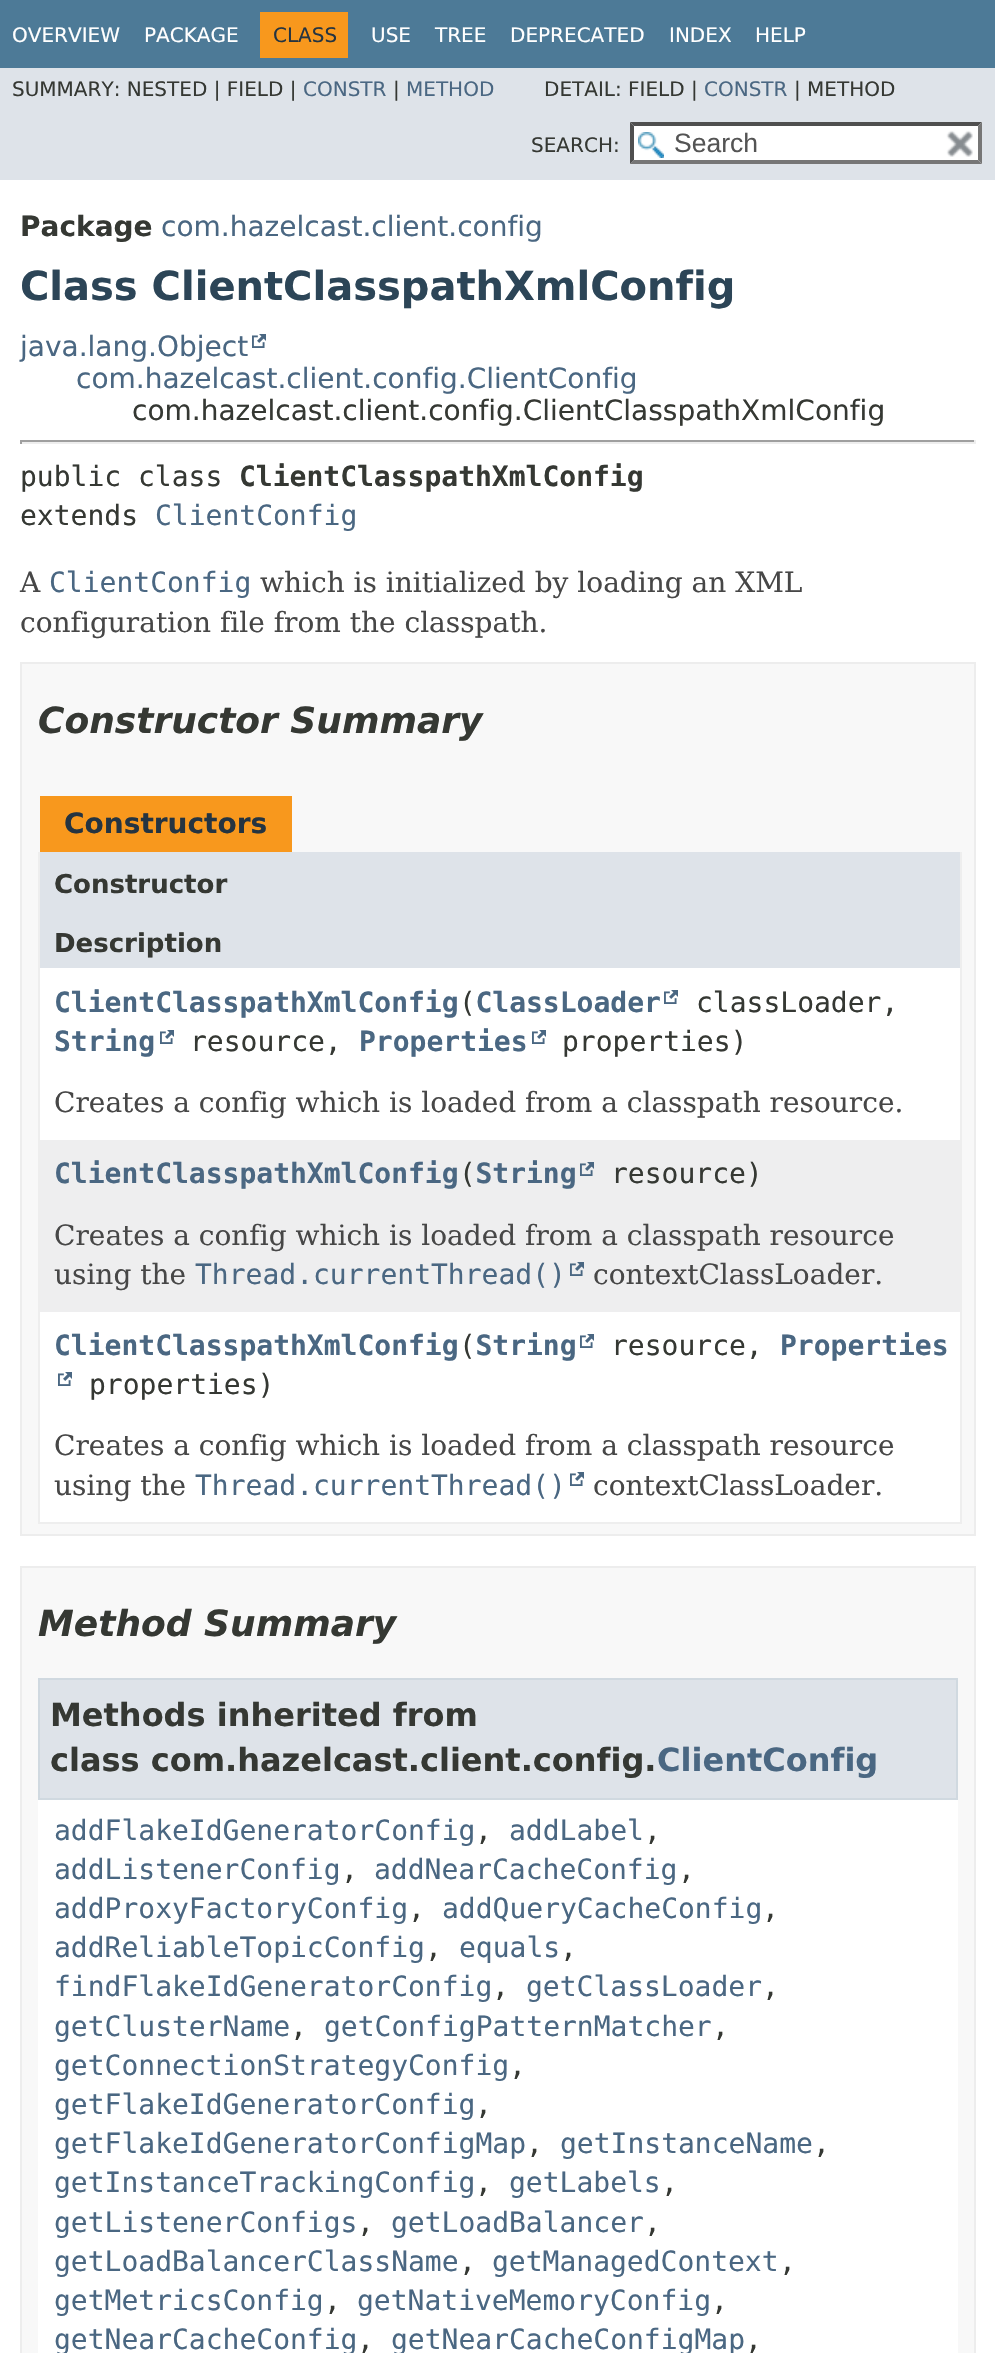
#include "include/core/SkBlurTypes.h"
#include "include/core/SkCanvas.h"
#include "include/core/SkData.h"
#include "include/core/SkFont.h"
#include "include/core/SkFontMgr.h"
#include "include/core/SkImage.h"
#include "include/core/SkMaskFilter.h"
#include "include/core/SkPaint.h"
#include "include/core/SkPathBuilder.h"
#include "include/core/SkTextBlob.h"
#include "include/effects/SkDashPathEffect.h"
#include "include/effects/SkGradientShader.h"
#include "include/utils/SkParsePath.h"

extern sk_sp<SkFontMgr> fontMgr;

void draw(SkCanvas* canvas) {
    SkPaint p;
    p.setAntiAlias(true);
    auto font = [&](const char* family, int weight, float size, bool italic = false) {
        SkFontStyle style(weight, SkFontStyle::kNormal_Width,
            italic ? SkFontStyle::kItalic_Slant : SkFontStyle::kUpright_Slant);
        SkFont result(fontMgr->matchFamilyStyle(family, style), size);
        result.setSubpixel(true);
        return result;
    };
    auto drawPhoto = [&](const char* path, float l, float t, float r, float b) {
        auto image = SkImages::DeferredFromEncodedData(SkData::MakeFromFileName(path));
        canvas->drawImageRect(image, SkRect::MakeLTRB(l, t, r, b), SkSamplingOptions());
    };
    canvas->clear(0xFFFFFFFF);
    p.setColor(0xFF4D7A97);
    canvas->drawRect(SkRect::MakeLTRB(0, 0, 995, 68), p);
    auto font1 = font("DejaVu Sans", 400, 20);
    p.setColor(0xFFFFFFFF);
    canvas->drawString("OVERVIEW", 12, 42, font1, p);
    canvas->drawString("PACKAGE", 144, 42, font1, p);
    p.setColor(0xFFF8981D);
    canvas->drawRect(SkRect::MakeLTRB(260, 12, 348, 58), p);
    p.setColor(0xFF253441);
    canvas->drawString("CLASS", 273, 42, font1, p);
    p.setColor(0xFFFFFFFF);
    {
        const struct { const char* s; float x, y; } items[] = {
            {"USE", 371, 42},
            {"TREE", 435, 42},
            {"DEPRECATED", 510, 42},
            {"INDEX", 669, 42},
            {"HELP", 755, 42},
        };
        for (auto [s, x, y] : items) {
            canvas->drawString(s, x, y, font1, p);
        }
    }
    p.setColor(0xFFDEE3E9);
    canvas->drawRect(SkRect::MakeLTRB(0, 68, 995, 180), p);
    p.setColor(0xFF353833);
    canvas->drawString("SUMMARY: NESTED | FIELD |", 12, 96, font1, p);
    p.setColor(0xFF4A6782);
    canvas->drawString("CONSTR", 303, 96, font1, p);
    p.setColor(0xFF353833);
    canvas->drawString("|", 393, 96, font1, p);
    p.setColor(0xFF4A6782);
    canvas->drawString("METHOD", 406, 96, font1, p);
    p.setColor(0xFF353833);
    canvas->drawString("DETAIL: FIELD |", 544, 96, font1, p);
    p.setColor(0xFF4A6782);
    canvas->drawString("CONSTR", 704, 96, font1, p);
    p.setColor(0xFF353833);
    canvas->drawString("| METHOD", 794, 96, font1, p);
    canvas->drawString("SEARCH:", 531, 152, font1, p);
    p.setColor(0xFFFFFFFF);
    canvas->drawRect(SkRect::MakeLTRB(630, 122, 982, 164), p);
    drawPhoto("media/1.png", 638, 132, 664, 158);
    p.setColor(0xFF4F4F4F);
    canvas->drawPath(SkPathBuilder().moveTo(630, 122).lineTo(982, 122).lineTo(978, 126).lineTo(634, 126).close().detach(), p);
    p.setColor(0xFF767676);
    canvas->drawPath(SkPathBuilder().moveTo(982, 122).lineTo(982, 164).lineTo(978, 160).lineTo(978, 126).close().detach(), p);
    canvas->drawPath(SkPathBuilder().moveTo(982, 164).lineTo(630, 164).lineTo(634, 160).lineTo(978, 160).close().detach(), p);
    p.setColor(0xFF4F4F4F);
    canvas->drawPath(SkPathBuilder().moveTo(630, 164).lineTo(630, 122).lineTo(634, 126).lineTo(634, 160).close().detach(), p);
    auto font2 = font("Liberation Sans", 400, 26.5f);
    p.setColor(0xFF545454);
    canvas->drawString("Search", 674, 152, font2, p);
    drawPhoto("media/2.png", 946, 130, 973, 157);
    auto font3 = font("DejaVu Sans", 700, 28);
    p.setColor(0xFF353833);
    canvas->drawString("Package", 20, 236, font3, p);
    auto font4 = font("DejaVu Sans", 400, 28);
    p.setColor(0xFF4A6782);
    canvas->drawString("com.hazelcast.client.config", 161, 236, font4, p);
    auto font5 = font("DejaVu Sans", 700, 40);
    p.setColor(0xFF2C4557);
    canvas->drawString("Class ClientClasspathXmlConfig", 20, 300, font5, p);
    p.setColor(0xFF4A6782);
    canvas->drawString("java.lang.Object", 20, 356, font4, p);
    drawPhoto("media/3.png", 252, 334, 266, 348);
    canvas->drawString("com.hazelcast.client.config.ClientConfig", 76, 388, font4, p);
    p.setColor(0xFF353833);
    canvas->drawString("com.hazelcast.client.config.ClientClasspathXmlConfig", 132, 420, font4, p);
    {
        const struct { float l, t, r, b; SkColor color; } items[] = {
            {20, 440, 976, 442, 0xFF9F9F9F},
            {974, 440, 976, 444, 0xFFEEEEEE},
            {20, 442, 976, 444, 0xFFEEEEEE},
            {20, 440, 22, 444, 0xFF9F9F9F},
        };
        for (auto [l, t, r, b, color] : items) {
            p.setColor(color);
            canvas->drawRect(SkRect::MakeLTRB(l, t, r, b), p);
        }
    }
    auto font6 = font("DejaVu Sans Mono", 400, 28);
    p.setColor(0xFF353833);
    canvas->drawString("public class", 20, 486, font6, p);
    auto font7 = font("DejaVu Sans Mono", 700, 28);
    canvas->drawString("ClientClasspathXmlConfig", 239, 486, font7, p);
    canvas->drawString("extends", 20, 525, font6, p);
    p.setColor(0xFF4A6782);
    canvas->drawString("ClientConfig", 155, 525, font6, p);
    auto font8 = font("DejaVu Serif", 400, 28);
    p.setColor(0xFF474747);
    canvas->drawString("A", 20, 592, font8, p);
    p.setColor(0xFF4A6782);
    canvas->drawString("ClientConfig", 49, 592, font6, p);
    p.setColor(0xFF474747);
    canvas->drawString("which is initialized by loading an XML", 260, 592, font8, p);
    canvas->drawString("configuration file from the classpath.", 20, 632, font8, p);
    p.setColor(0xFFF8F8F8);
    canvas->drawRect(SkRect::MakeLTRB(21, 663, 975, 1535), p);
    p.setStyle(SkPaint::kStroke_Style);
    p.setStrokeWidth(2);
    p.setColor(0xFFEDEDED);
    canvas->drawRect(SkRect::MakeLTRB(21, 663, 975, 1535), p);
    auto font9 = font("DejaVu Sans", 700, 36, true);
    p.setStyle(SkPaint::kFill_Style);
    p.setColor(0xFF353833);
    canvas->drawString("Constructor Summary", 38, 733, font9, p);
    p.setColor(0xFFF8981D);
    canvas->drawRect(SkRect::MakeLTRB(40, 796, 292, 852), p);
    p.setColor(0xFF253441);
    canvas->drawString("Constructors", 64, 833, font3, p);
    {
        const struct { float l, t, r, b; SkColor color; } items[] = {
            {960, 852, 962, 1524, 0xFFEEEEEE},
            {38, 1522, 962, 1524, 0xFFEEEEEE},
            {38, 852, 40, 1524, 0xFFEEEEEE},
            {40, 852, 960, 968, 0xFFDEE3E9},
        };
        for (auto [l, t, r, b, color] : items) {
            p.setColor(color);
            canvas->drawRect(SkRect::MakeLTRB(l, t, r, b), p);
        }
    }
    auto font10 = font("DejaVu Sans", 700, 26);
    p.setColor(0xFF353833);
    canvas->drawString("Constructor", 54, 893, font10, p);
    canvas->drawString("Description", 54, 952, font10, p);
    p.setColor(0xFFFFFFFF);
    canvas->drawRect(SkRect::MakeLTRB(40, 968, 960, 1140), p);
    p.setColor(0xFF4A6782);
    canvas->drawString("ClientClasspathXmlConfig ClassLoader", 54, 1012, font7, p);
    p.setColor(0xFF353833);
    canvas->drawString("(", 459, 1012, font6, p);
    drawPhoto("media/3.png", 664, 990, 678, 1004);
    canvas->drawString("classLoader,", 696, 1012, font6, p);
    p.setColor(0xFF4A6782);
    canvas->drawString("String", 54, 1051, font7, p);
    drawPhoto("media/3.png", 160, 1030, 174, 1044);
    p.setColor(0xFF353833);
    canvas->drawString("resource,", 190, 1051, font6, p);
    p.setColor(0xFF4A6782);
    canvas->drawString("Properties", 359, 1051, font7, p);
    drawPhoto("media/3.png", 532, 1030, 546, 1044);
    p.setColor(0xFF353833);
    canvas->drawString("properties)", 562, 1051, font6, p);
    p.setColor(0xFF474747);
    canvas->drawString("Creates a config which is loaded from a classpath resource.", 54, 1112, font8, p);
    p.setColor(0xFFEEEEEF);
    canvas->drawRect(SkRect::MakeLTRB(40, 1140, 960, 1312), p);
    p.setColor(0xFF4A6782);
    canvas->drawString("ClientClasspathXmlConfig String", 54, 1183, font7, p);
    p.setColor(0xFF353833);
    canvas->drawString("(", 459, 1183, font6, p);
    drawPhoto("media/4.png", 580, 1162, 594, 1176);
    canvas->drawString("resource)", 611, 1183, font6, p);
    p.setColor(0xFF474747);
    canvas->drawString("Creates a config which is loaded from a classpath resource", 54, 1245, font8, p);
    canvas->drawString("using the", 54, 1284, font8, p);
    p.setColor(0xFF4A6782);
    canvas->drawString("Thread.currentThread()", 195, 1284, font6, p);
    drawPhoto("media/4.png", 570, 1262, 584, 1276);
    p.setColor(0xFF474747);
    canvas->drawString("contextClassLoader.", 593, 1284, font8, p);
    p.setColor(0xFFFFFFFF);
    canvas->drawRect(SkRect::MakeLTRB(40, 1312, 960, 1522), p);
    p.setColor(0xFF4A6782);
    canvas->drawString("ClientClasspathXmlConfig String", 54, 1355, font7, p);
    canvas->drawString("Properties", 780, 1355, font7, p);
    drawPhoto("media/3.png", 58, 1372, 72, 1386);
    p.setColor(0xFF353833);
    canvas->drawString("(", 459, 1355, font6, p);
    drawPhoto("media/3.png", 580, 1334, 594, 1348);
    canvas->drawString("resource,", 611, 1355, font6, p);
    canvas->drawString("properties)", 89, 1394, font6, p);
    p.setColor(0xFF474747);
    canvas->drawString("Creates a config which is loaded from a classpath resource", 54, 1455, font8, p);
    canvas->drawString("using the", 54, 1495, font8, p);
    p.setColor(0xFF4A6782);
    canvas->drawString("Thread.currentThread()", 195, 1495, font6, p);
    drawPhoto("media/3.png", 570, 1472, 584, 1486);
    p.setColor(0xFF474747);
    canvas->drawString("contextClassLoader.", 593, 1495, font8, p);
    p.setColor(0xFFF8F8F8);
    canvas->drawRect(SkRect::MakeLTRB(21, 1567, 975, 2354), p);
    p.setStyle(SkPaint::kStroke_Style);
    p.setColor(0xFFEDEDED);
    canvas->drawRect(SkRect::MakeLTRB(21, 1567, 975, 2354), p);
    p.setStyle(SkPaint::kFill_Style);
    p.setColor(0xFF353833);
    canvas->drawString("Method Summary", 38, 1636, font9, p);
    p.setColor(0xFFFFFFFF);
    canvas->drawRect(SkRect::MakeLTRB(38, 1800, 958, 2353), p);
    p.setColor(0xFFDEE3E9);
    canvas->drawRect(SkRect::MakeLTRB(39, 1679, 957, 1799), p);
    p.setStyle(SkPaint::kStroke_Style);
    p.setColor(0xFFD0D9E0);
    canvas->drawRect(SkRect::MakeLTRB(39, 1679, 957, 1799), p);
    auto font11 = font("DejaVu Sans", 700, 32);
    p.setStyle(SkPaint::kFill_Style);
    p.setColor(0xFF353833);
    canvas->drawString("Methods inherited from", 50, 1726, font11, p);
    canvas->drawString("class com.hazelcast.client.config.", 50, 1771, font11, p);
    p.setColor(0xFF4A6782);
    canvas->drawString("ClientConfig", 657, 1771, font11, p);
    canvas->drawString("addFlakeIdGeneratorConfig", 54, 1840, font6, p);
    p.setColor(0xFF353833);
    canvas->drawString(",", 475, 1840, font6, p);
    p.setColor(0xFF4A6782);
    canvas->drawString("addLabel", 509, 1840, font6, p);
    p.setColor(0xFF353833);
    canvas->drawString(",", 644, 1840, font6, p);
    p.setColor(0xFF4A6782);
    canvas->drawString("addListenerConfig", 54, 1879, font6, p);
    p.setColor(0xFF353833);
    canvas->drawString(",", 341, 1879, font6, p);
    p.setColor(0xFF4A6782);
    canvas->drawString("addNearCacheConfig", 374, 1879, font6, p);
    p.setColor(0xFF353833);
    canvas->drawString(",", 678, 1879, font6, p);
    p.setColor(0xFF4A6782);
    canvas->drawString("addProxyFactoryConfig", 54, 1918, font6, p);
    p.setColor(0xFF353833);
    canvas->drawString(",", 408, 1918, font6, p);
    p.setColor(0xFF4A6782);
    canvas->drawString("addQueryCacheConfig", 442, 1918, font6, p);
    p.setColor(0xFF353833);
    canvas->drawString(",", 762, 1918, font6, p);
    p.setColor(0xFF4A6782);
    canvas->drawString("addReliableTopicConfig", 54, 1957, font6, p);
    p.setColor(0xFF353833);
    canvas->drawString(",", 425, 1957, font6, p);
    p.setColor(0xFF4A6782);
    canvas->drawString("equals", 459, 1957, font6, p);
    p.setColor(0xFF353833);
    canvas->drawString(",", 560, 1957, font6, p);
    p.setColor(0xFF4A6782);
    canvas->drawString("findFlakeIdGeneratorConfig", 54, 1996, font6, p);
    p.setColor(0xFF353833);
    canvas->drawString(",", 492, 1996, font6, p);
    p.setColor(0xFF4A6782);
    canvas->drawString("getClassLoader", 526, 1996, font6, p);
    p.setColor(0xFF353833);
    canvas->drawString(",", 762, 1996, font6, p);
    p.setColor(0xFF4A6782);
    canvas->drawString("getClusterName", 54, 2036, font6, p);
    p.setColor(0xFF353833);
    canvas->drawString(",", 290, 2036, font6, p);
    p.setColor(0xFF4A6782);
    canvas->drawString("getConfigPatternMatcher", 324, 2036, font6, p);
    p.setColor(0xFF353833);
    canvas->drawString(",", 712, 2036, font6, p);
    p.setColor(0xFF4A6782);
    canvas->drawString("getConnectionStrategyConfig", 54, 2075, font6, p);
    p.setColor(0xFF353833);
    canvas->drawString(",", 509, 2075, font6, p);
    p.setColor(0xFF4A6782);
    canvas->drawString("getFlakeIdGeneratorConfig", 54, 2114, font6, p);
    p.setColor(0xFF353833);
    canvas->drawString(",", 475, 2114, font6, p);
    p.setColor(0xFF4A6782);
    canvas->drawString("getFlakeIdGeneratorConfigMap", 54, 2153, font6, p);
    p.setColor(0xFF353833);
    canvas->drawString(",", 526, 2153, font6, p);
    p.setColor(0xFF4A6782);
    canvas->drawString("getInstanceName", 560, 2153, font6, p);
    p.setColor(0xFF353833);
    canvas->drawString(",", 813, 2153, font6, p);
    p.setColor(0xFF4A6782);
    canvas->drawString("getInstanceTrackingConfig", 54, 2192, font6, p);
    p.setColor(0xFF353833);
    canvas->drawString(",", 475, 2192, font6, p);
    p.setColor(0xFF4A6782);
    canvas->drawString("getLabels", 509, 2192, font6, p);
    p.setColor(0xFF353833);
    canvas->drawString(",", 661, 2192, font6, p);
    p.setColor(0xFF4A6782);
    canvas->drawString("getListenerConfigs", 54, 2232, font6, p);
    p.setColor(0xFF353833);
    canvas->drawString(",", 357, 2232, font6, p);
    p.setColor(0xFF4A6782);
    canvas->drawString("getLoadBalancer", 391, 2232, font6, p);
    p.setColor(0xFF353833);
    canvas->drawString(",", 644, 2232, font6, p);
    p.setColor(0xFF4A6782);
    canvas->drawString("getLoadBalancerClassName", 54, 2271, font6, p);
    p.setColor(0xFF353833);
    canvas->drawString(",", 459, 2271, font6, p);
    p.setColor(0xFF4A6782);
    canvas->drawString("getManagedContext", 492, 2271, font6, p);
    p.setColor(0xFF353833);
    canvas->drawString(",", 779, 2271, font6, p);
    p.setColor(0xFF4A6782);
    canvas->drawString("getMetricsConfig", 54, 2310, font6, p);
    p.setColor(0xFF353833);
    canvas->drawString(",", 324, 2310, font6, p);
    p.setColor(0xFF4A6782);
    canvas->drawString("getNativeMemoryConfig", 357, 2310, font6, p);
    p.setColor(0xFF353833);
    canvas->drawString(",", 711, 2310, font6, p);
    p.setColor(0xFF4A6782);
    canvas->drawString("getNearCacheConfig", 54, 2349, font6, p);
    p.setColor(0xFF353833);
    canvas->drawString(",", 357, 2349, font6, p);
    p.setColor(0xFF4A6782);
    canvas->drawString("getNearCacheConfigMap", 391, 2349, font6, p);
    p.setColor(0xFF353833);
    canvas->drawString(",", 745, 2349, font6, p);
}
